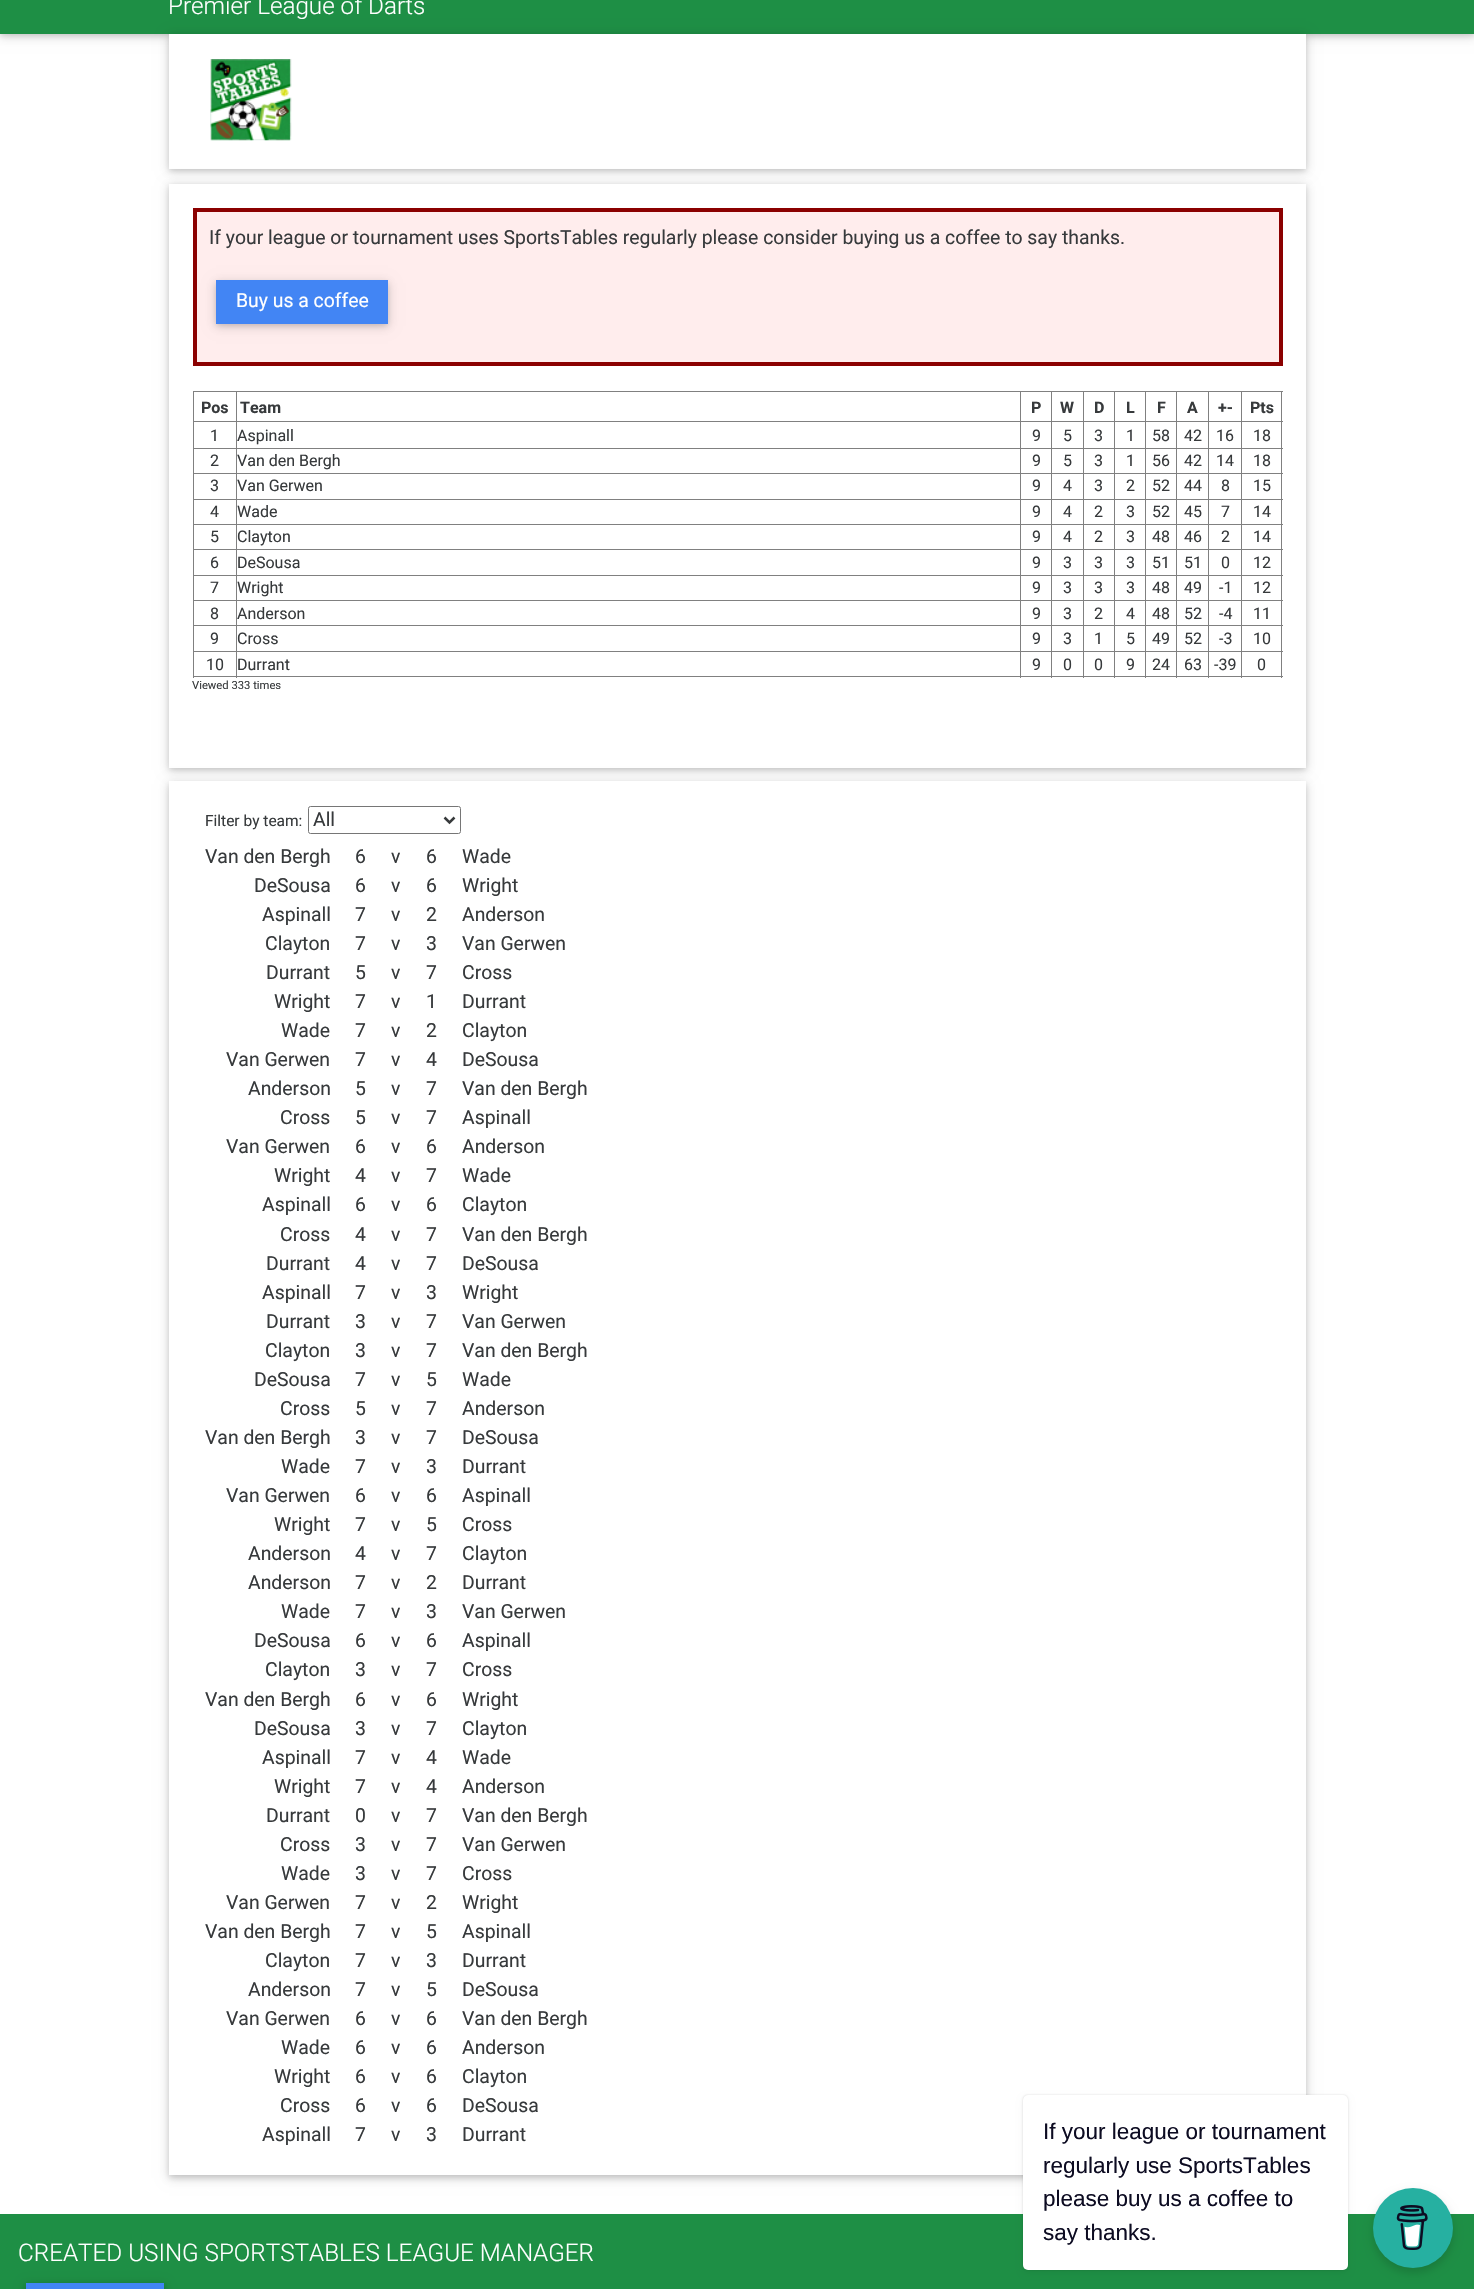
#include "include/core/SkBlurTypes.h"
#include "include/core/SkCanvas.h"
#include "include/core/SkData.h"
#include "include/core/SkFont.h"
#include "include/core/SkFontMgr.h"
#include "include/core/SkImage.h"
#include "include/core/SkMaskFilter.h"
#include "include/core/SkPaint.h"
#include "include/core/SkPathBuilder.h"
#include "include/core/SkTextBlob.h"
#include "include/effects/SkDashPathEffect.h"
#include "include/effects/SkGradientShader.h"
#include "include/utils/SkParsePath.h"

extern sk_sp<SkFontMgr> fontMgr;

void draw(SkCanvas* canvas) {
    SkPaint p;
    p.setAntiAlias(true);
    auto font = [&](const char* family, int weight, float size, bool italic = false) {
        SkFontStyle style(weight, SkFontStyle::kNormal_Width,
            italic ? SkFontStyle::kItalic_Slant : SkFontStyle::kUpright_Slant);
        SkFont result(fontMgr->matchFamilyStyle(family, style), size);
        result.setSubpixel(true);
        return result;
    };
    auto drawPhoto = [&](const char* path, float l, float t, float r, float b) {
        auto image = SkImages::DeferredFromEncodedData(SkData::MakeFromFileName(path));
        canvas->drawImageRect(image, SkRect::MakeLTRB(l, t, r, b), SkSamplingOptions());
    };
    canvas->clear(0xFFFFFFFF);
    p.setColor(0x1F000000);
    p.setMaskFilter(SkMaskFilter::MakeBlur(kNormal_SkBlurStyle, 6));
    canvas->drawRect(SkRect::MakeLTRB(0, -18, 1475, 36), p);
    p.setMaskFilter(nullptr);
    p.setColor(0x29000000);
    p.setMaskFilter(SkMaskFilter::MakeBlur(kNormal_SkBlurStyle, 3));
    canvas->drawRect(SkRect::MakeLTRB(0, -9, 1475, 36), p);
    p.setMaskFilter(nullptr);
    p.setColor(0xFF1E8F45);
    canvas->drawRect(SkRect::MakeLTRB(0, 0, 1474, 34), p);
    p.setColor(0x1F000000);
    p.setMaskFilter(SkMaskFilter::MakeBlur(kNormal_SkBlurStyle, 6));
    canvas->drawRect(SkRect::MakeLTRB(169, 36, 1306, 171), p);
    p.setMaskFilter(nullptr);
    auto font1 = font("Roboto", 300, 24.25f);
    p.setColor(0xFFFFFFFF);
    canvas->drawString("Premier League of Darts", 168, 14, font1, p);
    p.setColor(0x29000000);
    p.setMaskFilter(SkMaskFilter::MakeBlur(kNormal_SkBlurStyle, 3));
    canvas->drawRect(SkRect::MakeLTRB(169, 36, 1306, 171), p);
    p.setMaskFilter(nullptr);
    p.setColor(0xFFFFFFFF);
    canvas->drawRect(SkRect::MakeLTRB(169, 34, 1306, 169), p);
    drawPhoto("media/1.png", 210, 59, 292, 141);
    p.setColor(0x1F000000);
    p.setMaskFilter(SkMaskFilter::MakeBlur(kNormal_SkBlurStyle, 6));
    canvas->drawRect(SkRect::MakeLTRB(169, 186, 1306, 770), p);
    p.setMaskFilter(nullptr);
    p.setColor(0x29000000);
    p.setMaskFilter(SkMaskFilter::MakeBlur(kNormal_SkBlurStyle, 3));
    canvas->drawRect(SkRect::MakeLTRB(169, 186, 1306, 770), p);
    p.setMaskFilter(nullptr);
    p.setColor(0xFFFFFFFF);
    canvas->drawRect(SkRect::MakeLTRB(169, 184, 1306, 768), p);
    p.setColor(0xFFFFEDED);
    canvas->drawRect(SkRect::MakeLTRB(195, 210, 1281, 364), p);
    p.setStyle(SkPaint::kStroke_Style);
    p.setStrokeWidth(4);
    p.setColor(0xFF8B0000);
    canvas->drawRect(SkRect::MakeLTRB(195, 210, 1281, 364), p);
    auto font2 = font("Roboto", 400, 19.4f);
    p.setStyle(SkPaint::kFill_Style);
    p.setColor(0xFF373A3C);
    canvas->drawString("If your league or tournament uses SportsTables regularly please consider buying us a coffee to say thanks.", 209, 244, font2, p);
    p.setColor(0x1F000000);
    p.setMaskFilter(SkMaskFilter::MakeBlur(kNormal_SkBlurStyle, 6));
    canvas->drawRect(SkRect::MakeLTRB(216, 283, 388, 326), p);
    p.setMaskFilter(nullptr);
    p.setColor(0x29000000);
    p.setMaskFilter(SkMaskFilter::MakeBlur(kNormal_SkBlurStyle, 3));
    canvas->drawRect(SkRect::MakeLTRB(216, 283, 388, 326), p);
    p.setMaskFilter(nullptr);
    p.setColor(0xFF4285F4);
    canvas->drawRect(SkRect::MakeLTRB(216, 280, 388, 324), p);
    p.setColor(0xFFFFFFFF);
    canvas->drawString("Buy us a coffee", 236, 307, font2, p);
    {
        const struct { float l, t, r, b; SkColor color; } items[] = {
            {193, 391, 1283, 392, 0xFF808080},
            {1281, 391, 1282, 678, 0xFF808080},
            {193, 676, 1283, 677, 0xFF808080},
            {193, 391, 194, 678, 0xFF808080},
        };
        for (auto [l, t, r, b, color] : items) {
            p.setColor(color);
            canvas->drawRect(SkRect::MakeLTRB(l, t, r, b), p);
        }
    }
    auto font3 = font("Roboto", 700, 16);
    p.setColor(0xFF373A3C);
    canvas->drawString("Pos", 201, 413, font3, p);
    {
        const struct { float l, t, r, b; SkColor color; } items[] = {
            {1241, 421, 1283, 422, 0xFF808080},
            {1241, 448, 1283, 449, 0xFF808080},
            {1241, 473, 1283, 474, 0xFF808080},
            {1241, 499, 1283, 500, 0xFF808080},
            {1241, 524, 1283, 525, 0xFF808080},
            {1241, 549, 1283, 550, 0xFF808080},
            {1241, 575, 1283, 576, 0xFF808080},
            {1241, 600, 1283, 601, 0xFF808080},
            {1241, 625, 1283, 626, 0xFF808080},
            {1241, 651, 1283, 652, 0xFF808080},
            {1241, 651, 1242, 678, 0xFF808080},
            {1208, 651, 1243, 652, 0xFF808080},
            {1241, 625, 1242, 653, 0xFF808080},
            {1208, 625, 1243, 626, 0xFF808080},
            {1241, 600, 1242, 626, 0xFF808080},
            {1208, 600, 1243, 601, 0xFF808080},
            {1241, 575, 1242, 601, 0xFF808080},
            {1208, 575, 1243, 576, 0xFF808080},
            {1241, 549, 1242, 576, 0xFF808080},
            {1208, 549, 1243, 550, 0xFF808080},
            {1241, 524, 1242, 550, 0xFF808080},
            {1208, 524, 1243, 525, 0xFF808080},
            {1241, 499, 1242, 525, 0xFF808080},
            {1208, 499, 1243, 500, 0xFF808080},
            {1241, 473, 1242, 500, 0xFF808080},
            {1208, 473, 1243, 474, 0xFF808080},
            {1241, 448, 1242, 474, 0xFF808080},
            {1208, 448, 1243, 449, 0xFF808080},
            {1241, 421, 1242, 449, 0xFF808080},
            {1208, 421, 1243, 422, 0xFF808080},
            {1208, 651, 1209, 678, 0xFF808080},
            {1176, 651, 1209, 652, 0xFF808080},
            {1208, 625, 1209, 653, 0xFF808080},
            {1176, 625, 1209, 626, 0xFF808080},
            {1208, 600, 1209, 626, 0xFF808080},
            {1176, 600, 1209, 601, 0xFF808080},
            {1208, 575, 1209, 601, 0xFF808080},
            {1176, 575, 1209, 576, 0xFF808080},
            {1208, 549, 1209, 576, 0xFF808080},
            {1176, 549, 1209, 550, 0xFF808080},
            {1208, 524, 1209, 550, 0xFF808080},
            {1176, 524, 1209, 525, 0xFF808080},
            {1208, 499, 1209, 525, 0xFF808080},
            {1176, 499, 1209, 500, 0xFF808080},
            {1208, 473, 1209, 500, 0xFF808080},
            {1176, 473, 1209, 474, 0xFF808080},
            {1208, 448, 1209, 474, 0xFF808080},
            {1176, 448, 1209, 449, 0xFF808080},
            {1208, 421, 1209, 449, 0xFF808080},
            {1176, 421, 1209, 422, 0xFF808080},
            {1176, 651, 1177, 678, 0xFF808080},
            {1145, 651, 1178, 652, 0xFF808080},
            {1176, 625, 1177, 653, 0xFF808080},
            {1145, 625, 1178, 626, 0xFF808080},
            {1176, 600, 1177, 626, 0xFF808080},
            {1145, 600, 1178, 601, 0xFF808080},
            {1176, 575, 1177, 601, 0xFF808080},
            {1145, 575, 1178, 576, 0xFF808080},
            {1176, 549, 1177, 576, 0xFF808080},
            {1145, 549, 1178, 550, 0xFF808080},
            {1176, 524, 1177, 550, 0xFF808080},
            {1145, 524, 1178, 525, 0xFF808080},
            {1176, 499, 1177, 525, 0xFF808080},
            {1145, 499, 1178, 500, 0xFF808080},
            {1176, 473, 1177, 500, 0xFF808080},
            {1145, 473, 1178, 474, 0xFF808080},
            {1176, 448, 1177, 474, 0xFF808080},
            {1145, 448, 1178, 449, 0xFF808080},
            {1176, 421, 1177, 449, 0xFF808080},
            {1145, 421, 1178, 422, 0xFF808080},
            {1145, 651, 1146, 678, 0xFF808080},
            {1114, 651, 1146, 652, 0xFF808080},
            {1145, 625, 1146, 653, 0xFF808080},
            {1114, 625, 1146, 626, 0xFF808080},
            {1145, 600, 1146, 626, 0xFF808080},
            {1114, 600, 1146, 601, 0xFF808080},
            {1145, 575, 1146, 601, 0xFF808080},
            {1114, 575, 1146, 576, 0xFF808080},
            {1145, 549, 1146, 576, 0xFF808080},
            {1114, 549, 1146, 550, 0xFF808080},
            {1145, 524, 1146, 550, 0xFF808080},
            {1114, 524, 1146, 525, 0xFF808080},
            {1145, 499, 1146, 525, 0xFF808080},
            {1114, 499, 1146, 500, 0xFF808080},
            {1145, 473, 1146, 500, 0xFF808080},
            {1114, 473, 1146, 474, 0xFF808080},
            {1145, 448, 1146, 474, 0xFF808080},
            {1114, 448, 1146, 449, 0xFF808080},
            {1145, 421, 1146, 449, 0xFF808080},
            {1114, 421, 1146, 422, 0xFF808080},
            {1114, 651, 1115, 678, 0xFF808080},
            {1083, 651, 1115, 652, 0xFF808080},
            {1114, 625, 1115, 653, 0xFF808080},
            {1083, 625, 1115, 626, 0xFF808080},
            {1114, 600, 1115, 626, 0xFF808080},
            {1083, 600, 1115, 601, 0xFF808080},
            {1114, 575, 1115, 601, 0xFF808080},
            {1083, 575, 1115, 576, 0xFF808080},
            {1114, 549, 1115, 576, 0xFF808080},
            {1083, 549, 1115, 550, 0xFF808080},
            {1114, 524, 1115, 550, 0xFF808080},
            {1083, 524, 1115, 525, 0xFF808080},
            {1114, 499, 1115, 525, 0xFF808080},
            {1083, 499, 1115, 500, 0xFF808080},
            {1114, 473, 1115, 500, 0xFF808080},
            {1083, 473, 1115, 474, 0xFF808080},
            {1114, 448, 1115, 474, 0xFF808080},
            {1083, 448, 1115, 449, 0xFF808080},
            {1114, 421, 1115, 449, 0xFF808080},
            {1083, 421, 1115, 422, 0xFF808080},
            {1083, 651, 1084, 678, 0xFF808080},
            {1051, 651, 1084, 652, 0xFF808080},
            {1083, 625, 1084, 653, 0xFF808080},
            {1051, 625, 1084, 626, 0xFF808080},
            {1083, 600, 1084, 626, 0xFF808080},
            {1051, 600, 1084, 601, 0xFF808080},
            {1083, 575, 1084, 601, 0xFF808080},
            {1051, 575, 1084, 576, 0xFF808080},
            {1083, 549, 1084, 576, 0xFF808080},
            {1051, 549, 1084, 550, 0xFF808080},
            {1083, 524, 1084, 550, 0xFF808080},
            {1051, 524, 1084, 525, 0xFF808080},
            {1083, 499, 1084, 525, 0xFF808080},
            {1051, 499, 1084, 500, 0xFF808080},
            {1083, 473, 1084, 500, 0xFF808080},
            {1051, 473, 1084, 474, 0xFF808080},
            {1083, 448, 1084, 474, 0xFF808080},
            {1051, 448, 1084, 449, 0xFF808080},
            {1083, 421, 1084, 449, 0xFF808080},
            {1051, 421, 1084, 422, 0xFF808080},
            {1051, 651, 1052, 678, 0xFF808080},
            {1020, 651, 1053, 652, 0xFF808080},
            {1051, 625, 1052, 653, 0xFF808080},
            {1020, 625, 1053, 626, 0xFF808080},
            {1051, 600, 1052, 626, 0xFF808080},
            {1020, 600, 1053, 601, 0xFF808080},
            {1051, 575, 1052, 601, 0xFF808080},
            {1020, 575, 1053, 576, 0xFF808080},
            {1051, 549, 1052, 576, 0xFF808080},
            {1020, 549, 1053, 550, 0xFF808080},
            {1051, 524, 1052, 550, 0xFF808080},
            {1020, 524, 1053, 525, 0xFF808080},
            {1051, 499, 1052, 525, 0xFF808080},
            {1020, 499, 1053, 500, 0xFF808080},
            {1051, 473, 1052, 500, 0xFF808080},
            {1020, 473, 1053, 474, 0xFF808080},
            {1051, 448, 1052, 474, 0xFF808080},
            {1020, 448, 1053, 449, 0xFF808080},
            {1051, 421, 1052, 449, 0xFF808080},
            {1020, 421, 1053, 422, 0xFF808080},
            {1020, 651, 1021, 678, 0xFF808080},
            {236, 651, 1021, 652, 0xFF808080},
            {1020, 625, 1021, 653, 0xFF808080},
            {236, 625, 1021, 626, 0xFF808080},
            {1020, 600, 1021, 626, 0xFF808080},
            {236, 600, 1021, 601, 0xFF808080},
            {1020, 575, 1021, 601, 0xFF808080},
            {236, 575, 1021, 576, 0xFF808080},
            {1020, 549, 1021, 576, 0xFF808080},
            {236, 549, 1021, 550, 0xFF808080},
            {1020, 524, 1021, 550, 0xFF808080},
            {236, 524, 1021, 525, 0xFF808080},
            {1020, 499, 1021, 525, 0xFF808080},
            {236, 499, 1021, 500, 0xFF808080},
            {1020, 473, 1021, 500, 0xFF808080},
            {236, 473, 1021, 474, 0xFF808080},
            {1020, 448, 1021, 474, 0xFF808080},
            {236, 448, 1021, 449, 0xFF808080},
            {1020, 421, 1021, 449, 0xFF808080},
            {236, 421, 1021, 422, 0xFF808080},
            {236, 651, 237, 678, 0xFF808080},
            {193, 651, 238, 652, 0xFF808080},
            {236, 625, 237, 653, 0xFF808080},
            {193, 625, 238, 626, 0xFF808080},
            {236, 600, 237, 626, 0xFF808080},
            {193, 600, 238, 601, 0xFF808080},
            {236, 575, 237, 601, 0xFF808080},
            {193, 575, 238, 576, 0xFF808080},
            {236, 549, 237, 576, 0xFF808080},
            {193, 549, 238, 550, 0xFF808080},
            {236, 524, 237, 550, 0xFF808080},
            {193, 524, 238, 525, 0xFF808080},
            {236, 499, 237, 525, 0xFF808080},
            {193, 499, 238, 500, 0xFF808080},
            {236, 473, 237, 500, 0xFF808080},
            {193, 473, 238, 474, 0xFF808080},
            {236, 448, 237, 474, 0xFF808080},
            {193, 448, 238, 449, 0xFF808080},
            {236, 421, 237, 449, 0xFF808080},
            {193, 421, 238, 422, 0xFF808080},
            {236, 391, 237, 423, 0xFF808080},
        };
        for (auto [l, t, r, b, color] : items) {
            p.setColor(color);
            canvas->drawRect(SkRect::MakeLTRB(l, t, r, b), p);
        }
    }
    p.setColor(0xFF373A3C);
    canvas->drawString("Team", 240, 413, font3, p);
    p.setColor(0xFF808080);
    canvas->drawRect(SkRect::MakeLTRB(1020, 391, 1021, 423), p);
    p.setColor(0xFF373A3C);
    canvas->drawString("P", 1031, 413, font3, p);
    p.setColor(0xFF808080);
    canvas->drawRect(SkRect::MakeLTRB(1051, 391, 1052, 423), p);
    p.setColor(0xFF373A3C);
    canvas->drawString("W", 1060, 413, font3, p);
    p.setColor(0xFF808080);
    canvas->drawRect(SkRect::MakeLTRB(1083, 391, 1084, 423), p);
    p.setColor(0xFF373A3C);
    canvas->drawString("D", 1094, 413, font3, p);
    p.setColor(0xFF808080);
    canvas->drawRect(SkRect::MakeLTRB(1114, 391, 1115, 423), p);
    p.setColor(0xFF373A3C);
    canvas->drawString("L", 1126, 413, font3, p);
    p.setColor(0xFF808080);
    canvas->drawRect(SkRect::MakeLTRB(1145, 391, 1146, 423), p);
    p.setColor(0xFF373A3C);
    canvas->drawString("F", 1157, 413, font3, p);
    p.setColor(0xFF808080);
    canvas->drawRect(SkRect::MakeLTRB(1176, 391, 1177, 423), p);
    p.setColor(0xFF373A3C);
    canvas->drawString("A", 1187, 413, font3, p);
    p.setColor(0xFF808080);
    canvas->drawRect(SkRect::MakeLTRB(1208, 391, 1209, 423), p);
    p.setColor(0xFF373A3C);
    canvas->drawString("+-", 1218, 413, font3, p);
    p.setColor(0xFF808080);
    canvas->drawRect(SkRect::MakeLTRB(1241, 391, 1242, 423), p);
    p.setColor(0xFF373A3C);
    canvas->drawString("Pts", 1250, 413, font3, p);
    auto font4 = font("Roboto", 400, 16);
    {
        const struct { const char* s; float x, y; } items[] = {
            {"1", 210, 441},
            {"Aspinall", 237, 441},
            {"9", 1032, 441},
            {"5", 1063, 441},
            {"3", 1094, 441},
            {"1", 1126, 441},
            {"58", 1152, 441},
            {"42", 1184, 441},
            {"16", 1216, 441},
            {"18", 1253, 441},
            {"2", 210, 466},
            {"Van den Bergh", 237, 466},
            {"9", 1032, 466},
            {"5", 1063, 466},
            {"3", 1094, 466},
            {"1", 1126, 466},
            {"56", 1152, 466},
            {"42", 1184, 466},
            {"14", 1216, 466},
            {"18", 1253, 466},
            {"3", 210, 491},
            {"Van Gerwen", 237, 491},
            {"9", 1032, 491},
            {"4", 1063, 491},
            {"3", 1094, 491},
            {"2", 1126, 491},
            {"52", 1152, 491},
            {"44", 1184, 491},
            {"8", 1221, 491},
            {"15", 1253, 491},
            {"4", 210, 517},
            {"Wade", 237, 517},
            {"9", 1032, 517},
            {"4", 1063, 517},
            {"2", 1094, 517},
            {"3", 1126, 517},
            {"52", 1152, 517},
            {"45", 1184, 517},
            {"7", 1221, 517},
            {"14", 1253, 517},
            {"5", 210, 542},
            {"Clayton", 237, 542},
            {"9", 1032, 542},
            {"4", 1063, 542},
            {"2", 1094, 542},
            {"3", 1126, 542},
            {"48", 1152, 542},
            {"46", 1184, 542},
            {"2", 1221, 542},
            {"14", 1253, 542},
            {"6", 210, 568},
            {"DeSousa", 237, 568},
            {"9", 1032, 568},
            {"3", 1063, 568},
            {"3", 1094, 568},
            {"3", 1126, 568},
            {"51", 1152, 568},
            {"51", 1184, 568},
            {"0", 1221, 568},
            {"12", 1253, 568},
            {"7", 210, 593},
            {"Wright", 237, 593},
            {"9", 1032, 593},
            {"3", 1063, 593},
            {"3", 1094, 593},
            {"3", 1126, 593},
            {"48", 1152, 593},
            {"49", 1184, 593},
            {"-1", 1219, 593},
            {"12", 1253, 593},
            {"8", 210, 619},
            {"Anderson", 237, 619},
            {"9", 1032, 619},
            {"3", 1063, 619},
            {"2", 1094, 619},
            {"4", 1126, 619},
            {"48", 1152, 619},
            {"52", 1184, 619},
            {"-4", 1219, 619},
            {"11", 1253, 619},
            {"9", 210, 644},
            {"Cross", 237, 644},
            {"9", 1032, 644},
            {"3", 1063, 644},
            {"1", 1094, 644},
            {"5", 1126, 644},
            {"49", 1152, 644},
            {"52", 1184, 644},
            {"-3", 1219, 644},
            {"10", 1253, 644},
            {"10", 206, 670},
            {"Durrant", 237, 670},
            {"9", 1032, 670},
            {"0", 1063, 670},
            {"0", 1094, 670},
            {"9", 1126, 670},
            {"24", 1152, 670},
            {"63", 1184, 670},
            {"-39", 1214, 670},
            {"0", 1257, 670},
        };
        for (auto [s, x, y] : items) {
            canvas->drawString(s, x, y, font4, p);
        }
    }
    auto font5 = font("Roboto", 400, 11.25f);
    canvas->drawString("Viewed 333 times", 192, 689, font5, p);
    p.setColor(0x1F000000);
    p.setMaskFilter(SkMaskFilter::MakeBlur(kNormal_SkBlurStyle, 6));
    canvas->drawRect(SkRect::MakeLTRB(169, 784, 1306, 2178), p);
    p.setMaskFilter(nullptr);
    p.setColor(0x29000000);
    p.setMaskFilter(SkMaskFilter::MakeBlur(kNormal_SkBlurStyle, 3));
    canvas->drawRect(SkRect::MakeLTRB(169, 784, 1306, 2178), p);
    p.setMaskFilter(nullptr);
    p.setColor(0xFFFFFFFF);
    canvas->drawRect(SkRect::MakeLTRB(169, 781, 1306, 2175), p);
    auto font6 = font("Roboto", 400, 15.5f);
    p.setColor(0xFF373A3C);
    canvas->drawString("Filter by team:", 205, 826, font6, p);
    p.setStyle(SkPaint::kStroke_Style);
    p.setStrokeWidth(1);
    p.setColor(0xFF767676);
    canvas->drawRoundRect(SkRect::MakeLTRB(308.5f, 806.5f, 460.5f, 833.5f), 2, 2, p);
    p.setStrokeWidth(2.5f);
    p.setColor(0xFF373A3C);
    canvas->drawPath(SkPathBuilder().moveTo(444.5f, 817.5f).lineTo(449.5f, 822.5f).lineTo(454.5f, 817.5f).detach(), p);
    p.setStyle(SkPaint::kFill_Style);
    {
        const struct { const char* s; float x, y; } items[] = {
            {"All", 313, 826},
            {"Van den Bergh", 205, 863},
            {"6", 355, 863},
            {"v", 391, 863},
            {"6", 426, 863},
            {"Wade", 462, 863},
            {"DeSousa", 254, 892},
            {"6", 355, 892},
            {"v", 391, 892},
            {"6", 426, 892},
            {"Wright", 462, 892},
            {"Aspinall", 262, 921},
            {"7", 355, 921},
            {"v", 391, 921},
            {"2", 426, 921},
            {"Anderson", 462, 921},
            {"Clayton", 265, 950},
            {"7", 355, 950},
            {"v", 391, 950},
            {"3", 426, 950},
            {"Van Gerwen", 462, 950},
            {"Durrant", 266, 979},
            {"5", 355, 979},
            {"v", 391, 979},
            {"7", 426, 979},
            {"Cross", 462, 979},
            {"Wright", 274, 1008},
            {"7", 355, 1008},
            {"v", 391, 1008},
            {"1", 426, 1008},
            {"Durrant", 462, 1008},
            {"Wade", 281, 1037},
            {"7", 355, 1037},
            {"v", 391, 1037},
            {"2", 426, 1037},
            {"Clayton", 462, 1037},
            {"Van Gerwen", 226, 1066},
            {"7", 355, 1066},
            {"v", 391, 1066},
            {"4", 426, 1066},
            {"DeSousa", 462, 1066},
            {"Anderson", 248, 1095},
            {"5", 355, 1095},
            {"v", 391, 1095},
            {"7", 426, 1095},
            {"Van den Bergh", 462, 1095},
            {"Cross", 280, 1124},
            {"5", 355, 1124},
            {"v", 391, 1124},
            {"7", 426, 1124},
            {"Aspinall", 462, 1124},
            {"Van Gerwen", 226, 1153},
            {"6", 355, 1153},
            {"v", 391, 1153},
            {"6", 426, 1153},
            {"Anderson", 462, 1153},
            {"Wright", 274, 1182},
            {"4", 355, 1182},
            {"v", 391, 1182},
            {"7", 426, 1182},
            {"Wade", 462, 1182},
            {"Aspinall", 262, 1211},
            {"6", 355, 1211},
            {"v", 391, 1211},
            {"6", 426, 1211},
            {"Clayton", 462, 1211},
            {"Cross", 280, 1241},
            {"4", 355, 1241},
            {"v", 391, 1241},
            {"7", 426, 1241},
            {"Van den Bergh", 462, 1241},
            {"Durrant", 266, 1270},
            {"4", 355, 1270},
            {"v", 391, 1270},
            {"7", 426, 1270},
            {"DeSousa", 462, 1270},
            {"Aspinall", 262, 1299},
            {"7", 355, 1299},
            {"v", 391, 1299},
            {"3", 426, 1299},
            {"Wright", 462, 1299},
            {"Durrant", 266, 1328},
            {"3", 355, 1328},
            {"v", 391, 1328},
            {"7", 426, 1328},
            {"Van Gerwen", 462, 1328},
            {"Clayton", 265, 1357},
            {"3", 355, 1357},
            {"v", 391, 1357},
            {"7", 426, 1357},
            {"Van den Bergh", 462, 1357},
            {"DeSousa", 254, 1386},
            {"7", 355, 1386},
            {"v", 391, 1386},
            {"5", 426, 1386},
            {"Wade", 462, 1386},
            {"Cross", 280, 1415},
            {"5", 355, 1415},
            {"v", 391, 1415},
            {"7", 426, 1415},
            {"Anderson", 462, 1415},
            {"Van den Bergh", 205, 1444},
            {"3", 355, 1444},
            {"v", 391, 1444},
            {"7", 426, 1444},
            {"DeSousa", 462, 1444},
            {"Wade", 281, 1473},
            {"7", 355, 1473},
            {"v", 391, 1473},
            {"3", 426, 1473},
            {"Durrant", 462, 1473},
            {"Van Gerwen", 226, 1502},
            {"6", 355, 1502},
            {"v", 391, 1502},
            {"6", 426, 1502},
            {"Aspinall", 462, 1502},
            {"Wright", 274, 1531},
            {"7", 355, 1531},
            {"v", 391, 1531},
            {"5", 426, 1531},
            {"Cross", 462, 1531},
            {"Anderson", 248, 1560},
            {"4", 355, 1560},
            {"v", 391, 1560},
            {"7", 426, 1560},
            {"Clayton", 462, 1560},
            {"Anderson", 248, 1589},
            {"7", 355, 1589},
            {"v", 391, 1589},
            {"2", 426, 1589},
            {"Durrant", 462, 1589},
            {"Wade", 281, 1618},
            {"7", 355, 1618},
            {"v", 391, 1618},
            {"3", 426, 1618},
            {"Van Gerwen", 462, 1618},
            {"DeSousa", 254, 1647},
            {"6", 355, 1647},
            {"v", 391, 1647},
            {"6", 426, 1647},
            {"Aspinall", 462, 1647},
            {"Clayton", 265, 1676},
            {"3", 355, 1676},
            {"v", 391, 1676},
            {"7", 426, 1676},
            {"Cross", 462, 1676},
            {"Van den Bergh", 205, 1706},
            {"6", 355, 1706},
            {"v", 391, 1706},
            {"6", 426, 1706},
            {"Wright", 462, 1706},
            {"DeSousa", 254, 1735},
            {"3", 355, 1735},
            {"v", 391, 1735},
            {"7", 426, 1735},
            {"Clayton", 462, 1735},
            {"Aspinall", 262, 1764},
            {"7", 355, 1764},
            {"v", 391, 1764},
            {"4", 426, 1764},
            {"Wade", 462, 1764},
            {"Wright", 274, 1793},
            {"7", 355, 1793},
            {"v", 391, 1793},
            {"4", 426, 1793},
            {"Anderson", 462, 1793},
            {"Durrant", 266, 1822},
            {"0", 355, 1822},
            {"v", 391, 1822},
            {"7", 426, 1822},
            {"Van den Bergh", 462, 1822},
            {"Cross", 280, 1851},
            {"3", 355, 1851},
            {"v", 391, 1851},
            {"7", 426, 1851},
            {"Van Gerwen", 462, 1851},
            {"Wade", 281, 1880},
            {"3", 355, 1880},
            {"v", 391, 1880},
            {"7", 426, 1880},
            {"Cross", 462, 1880},
            {"Van Gerwen", 226, 1909},
            {"7", 355, 1909},
            {"v", 391, 1909},
            {"2", 426, 1909},
            {"Wright", 462, 1909},
            {"Van den Bergh", 205, 1938},
            {"7", 355, 1938},
            {"v", 391, 1938},
            {"5", 426, 1938},
            {"Aspinall", 462, 1938},
            {"Clayton", 265, 1967},
            {"7", 355, 1967},
            {"v", 391, 1967},
            {"3", 426, 1967},
            {"Durrant", 462, 1967},
            {"Anderson", 248, 1996},
            {"7", 355, 1996},
            {"v", 391, 1996},
            {"5", 426, 1996},
            {"DeSousa", 462, 1996},
            {"Van Gerwen", 226, 2025},
            {"6", 355, 2025},
            {"v", 391, 2025},
            {"6", 426, 2025},
            {"Van den Bergh", 462, 2025},
            {"Wade", 281, 2054},
            {"6", 355, 2054},
            {"v", 391, 2054},
            {"6", 426, 2054},
            {"Anderson", 462, 2054},
            {"Wright", 274, 2083},
            {"6", 355, 2083},
            {"v", 391, 2083},
            {"6", 426, 2083},
            {"Clayton", 462, 2083},
            {"Cross", 280, 2112},
            {"6", 355, 2112},
            {"v", 391, 2112},
            {"6", 426, 2112},
            {"DeSousa", 462, 2112},
            {"Aspinall", 262, 2141},
            {"7", 355, 2141},
            {"v", 391, 2141},
            {"3", 426, 2141},
            {"Durrant", 462, 2141},
        };
        for (auto [s, x, y] : items) {
            canvas->drawString(s, x, y, font2, p);
        }
    }
    p.setColor(0xFF1E8F45);
    canvas->drawRect(SkRect::MakeLTRB(0, 2214, 1474, 2289), p);
    p.setColor(0xFFFFFFFF);
    canvas->drawString("CREATED USING SPORTSTABLES LEAGUE MANAGER", 18, 2261, font1, p);
    p.setColor(0x1F000000);
    p.setMaskFilter(SkMaskFilter::MakeBlur(kNormal_SkBlurStyle, 6));
    canvas->drawRect(SkRect::MakeLTRB(26, 2285, 164, 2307), p);
    p.setMaskFilter(nullptr);
    p.setColor(0x29000000);
    p.setMaskFilter(SkMaskFilter::MakeBlur(kNormal_SkBlurStyle, 3));
    canvas->drawRect(SkRect::MakeLTRB(26, 2285, 164, 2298), p);
    p.setMaskFilter(nullptr);
    p.setColor(0xFF4285F4);
    canvas->drawRect(SkRect::MakeLTRB(26, 2283, 164, 2289), p);
    p.setColor(0x26000000);
    p.setMaskFilter(SkMaskFilter::MakeBlur(kNormal_SkBlurStyle, 1));
    canvas->drawRoundRect(SkRect::MakeLTRB(1023, 2095, 1348, 2270), 5, 5, p);
    p.setMaskFilter(nullptr);
    p.setColor(0x0D000000);
    p.setMaskFilter(SkMaskFilter::MakeBlur(kNormal_SkBlurStyle, 3));
    canvas->drawRoundRect(SkRect::MakeLTRB(1023, 2098, 1348, 2273), 5, 5, p);
    p.setMaskFilter(nullptr);
    p.setColor(0xFFFFFFFF);
    canvas->drawRoundRect(SkRect::MakeLTRB(1023, 2095, 1348, 2270), 5, 5, p);
    auto font7 = font("Liberation Sans", 400, 22.5f);
    p.setColor(0xFF0D0C22);
    {
        const struct { const char* s; float x, y; } items[] = {
            {"If your league or tournament", 1043, 2139},
            {"regularly use SportsTables", 1043, 2173},
            {"please buy us a coffee to", 1043, 2206},
            {"say thanks.", 1043, 2240},
        };
        for (auto [s, x, y] : items) {
            canvas->drawString(s, x, y, font7, p);
        }
    }
    p.setColor(0x26000000);
    p.setMaskFilter(SkMaskFilter::MakeBlur(kNormal_SkBlurStyle, 5));
    canvas->drawRoundRect(SkRect::MakeLTRB(1373, 2193, 1453, 2273), 40, 40, p);
    p.setMaskFilter(nullptr);
    p.setColor(0xFF26B0A1);
    canvas->drawCircle(1413, 2228, 40, p);
    drawPhoto("media/2.png", 1396, 2205, 1428, 2250);
}
